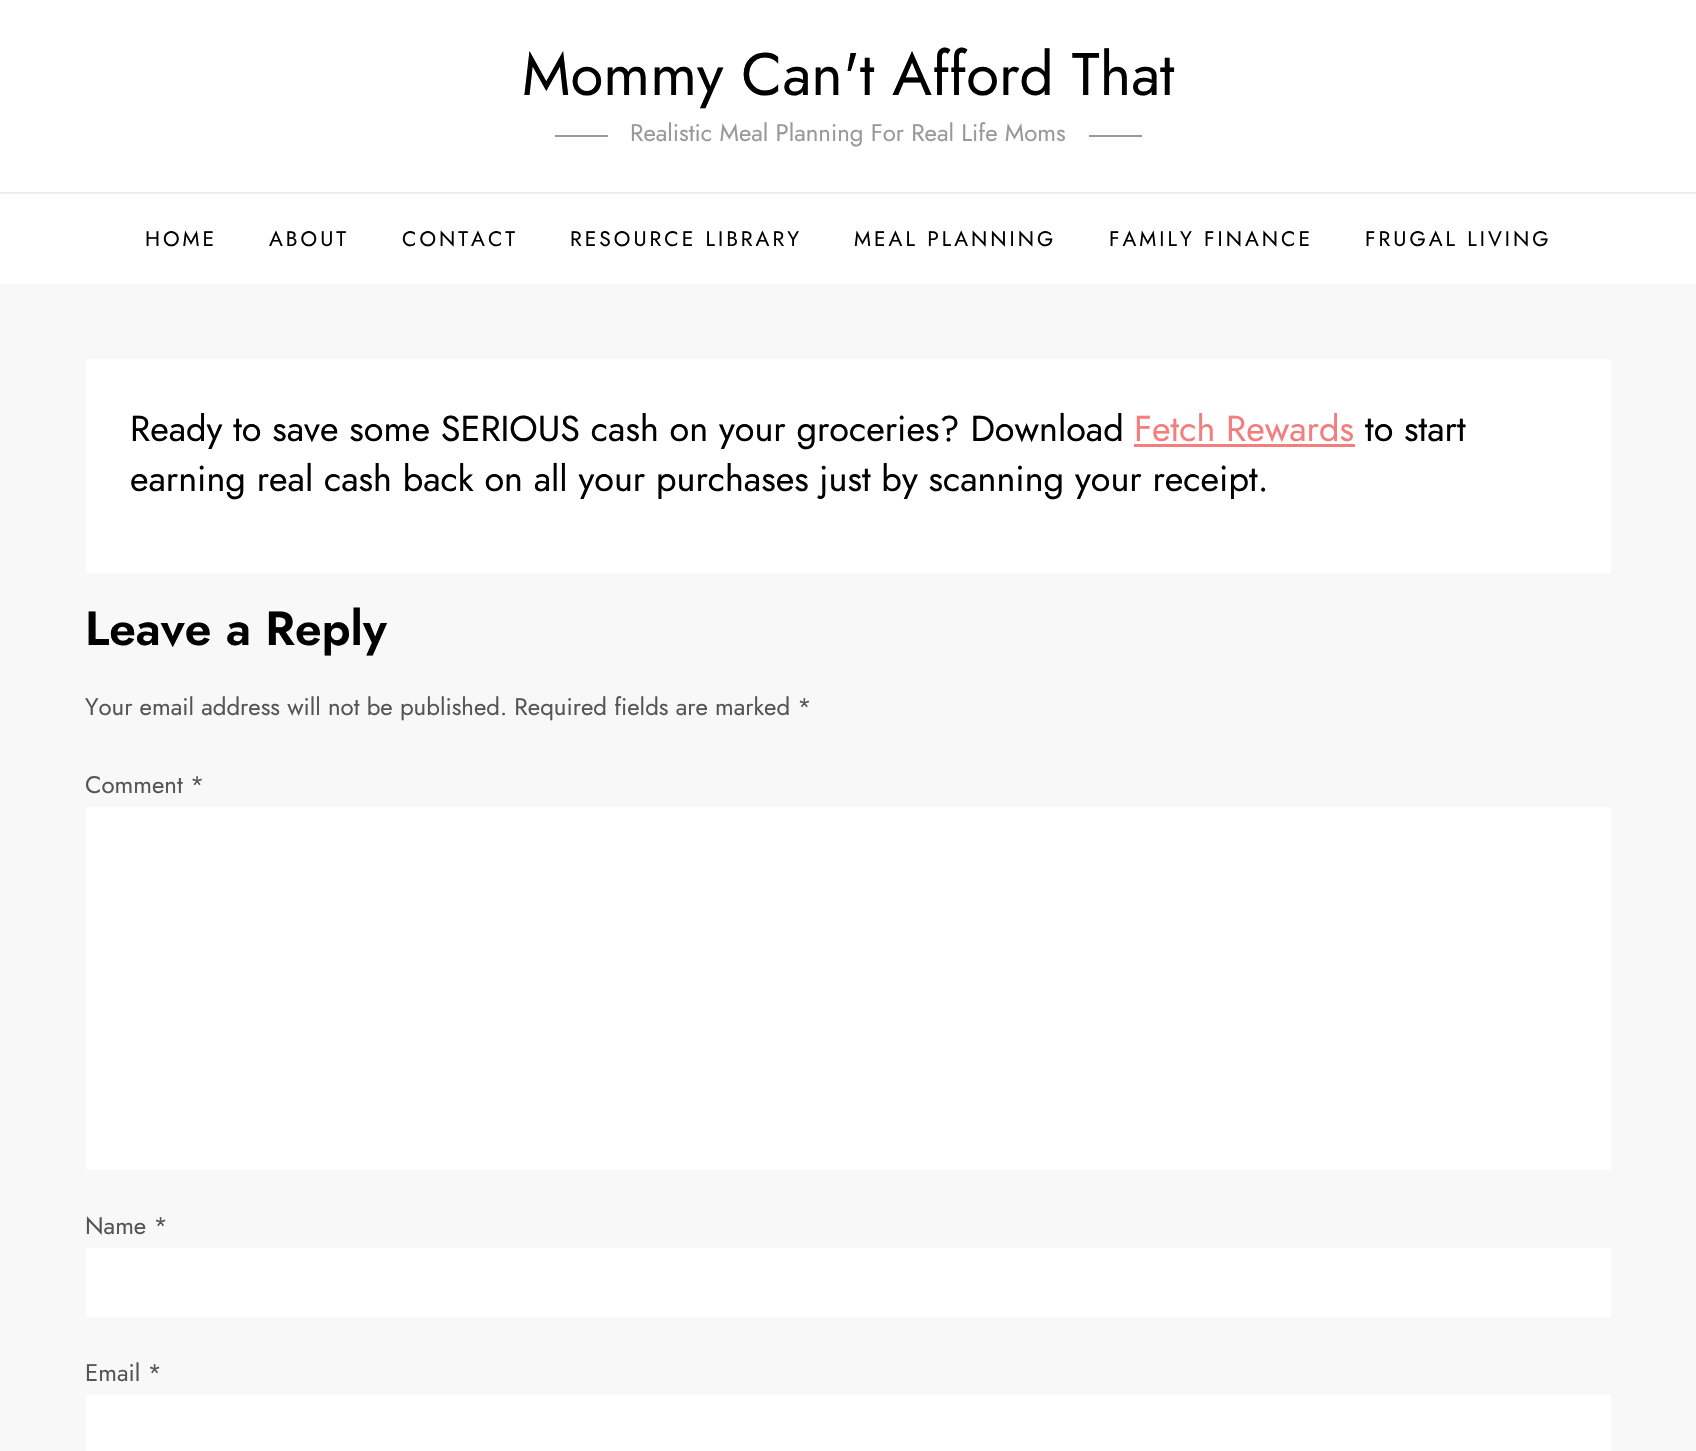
#include "include/core/SkBlurTypes.h"
#include "include/core/SkCanvas.h"
#include "include/core/SkData.h"
#include "include/core/SkFont.h"
#include "include/core/SkFontMgr.h"
#include "include/core/SkImage.h"
#include "include/core/SkMaskFilter.h"
#include "include/core/SkPaint.h"
#include "include/core/SkPathBuilder.h"
#include "include/core/SkTextBlob.h"
#include "include/effects/SkDashPathEffect.h"
#include "include/effects/SkGradientShader.h"
#include "include/utils/SkParsePath.h"

extern sk_sp<SkFontMgr> fontMgr;

void draw(SkCanvas* canvas) {
    SkPaint p;
    p.setAntiAlias(true);
    auto font = [&](const char* family, int weight, float size, bool italic = false) {
        SkFontStyle style(weight, SkFontStyle::kNormal_Width,
            italic ? SkFontStyle::kItalic_Slant : SkFontStyle::kUpright_Slant);
        SkFont result(fontMgr->matchFamilyStyle(family, style), size);
        result.setSubpixel(true);
        return result;
    };
    auto drawTracked = [&](const char* s, float x, float y, const SkFont& font, const SkPaint& ink, float letter, float word) {
        std::vector<SkGlyphID> glyphs(font.countText(s, strlen(s), SkTextEncoding::kUTF8));
        std::vector<float> xs(glyphs.size());
        font.textToGlyphs(s, strlen(s), SkTextEncoding::kUTF8, glyphs);
        font.getXPos(glyphs, xs, x);
        float extra = 0;
        for (size_t i = 0; i < glyphs.size(); i++) {
            xs[i] += extra;
            extra += letter + word * (glyphs[i] == font.unicharToGlyph(' '));
        }
        canvas->drawTextBlob(SkTextBlob::MakeFromPosHGlyphs(glyphs, xs, y, font), 0, 0, ink);
    };
    canvas->clear(0xFFF8F8F8);
    p.setColor(0xFFFFFFFF);
    canvas->drawRect(SkRect::MakeLTRB(0, 0, 1696, 284), p);
    auto font1 = font("Jost", 400, 60);
    p.setColor(0xFF000000);
    canvas->drawString("Mommy Can't Afford That", 522, 95, font1, p);
    p.setColor(0xFF999999);
    canvas->drawRect(SkRect::MakeLTRB(555, 135, 608, 137), p);
    auto font2 = font("Jost", 400, 24);
    canvas->drawString("Realistic Meal Planning For Real Life Moms", 630, 141, font2, p);
    canvas->drawRect(SkRect::MakeLTRB(1089, 135, 1142, 137), p);
    p.setColor(0xFFEEEEEE);
    canvas->drawRect(SkRect::MakeLTRB(0, 192, 1696, 194), p);
    auto font3 = font("Jost", 400, 21);
    p.setColor(0xFF000000);
    {
        const struct { const char* s; float x, y; } items[] = {
            {"HOME", 145, 246},
            {"ABOUT", 269, 246},
            {"CONTACT", 402, 246},
            {"RESOURCE LIBRARY", 570, 246},
            {"MEAL PLANNING", 854, 246},
            {"FAMILY FINANCE", 1109, 246},
            {"FRUGAL LIVING", 1365, 246},
        };
        for (auto [s, x, y] : items) {
            drawTracked(s, x, y, font3, p, 3, 0);
        }
    }
    p.setColor(0xFFFFFFFF);
    canvas->drawRect(SkRect::MakeLTRB(86, 359, 1611, 573), p);
    auto font4 = font("Jost", 400, 36);
    p.setColor(0xFF000000);
    canvas->drawString("Ready to save some SERIOUS cash on your groceries? Download", 130, 441, font4, p);
    p.setColor(0xFFF37E7E);
    canvas->drawString("Fetch Rewards", 1134, 441, font4, p);
    canvas->drawRect(SkRect::MakeLTRB(1134, 444, 1355, 447), p);
    p.setColor(0xFF000000);
    canvas->drawString("to start", 1365, 441, font4, p);
    canvas->drawString("earning real cash back on all your purchases just by scanning your receipt.", 130, 491, font4, p);
    auto font5 = font("Jost", 600, 48);
    canvas->drawString("Leave a Reply", 85, 645, font5, p);
    p.setColor(0xFF555555);
    canvas->drawString("Your email address will not be published. Required fields are marked *", 85, 715, font2, p);
    canvas->drawString("Comment *", 85, 793, font2, p);
    p.setColor(0xFFFFFFFF);
    canvas->drawRect(SkRect::MakeLTRB(86, 807, 1611, 1170), p);
    p.setColor(0xFF555555);
    canvas->drawString("Name *", 85, 1234, font2, p);
    p.setColor(0xFFFFFFFF);
    canvas->drawRect(SkRect::MakeLTRB(86, 1248, 1611, 1317), p);
    p.setColor(0xFF555555);
    canvas->drawString("Email *", 85, 1381, font2, p);
    p.setColor(0xFFFFFFFF);
    canvas->drawRect(SkRect::MakeLTRB(86, 1395, 1611, 1451), p);
}
